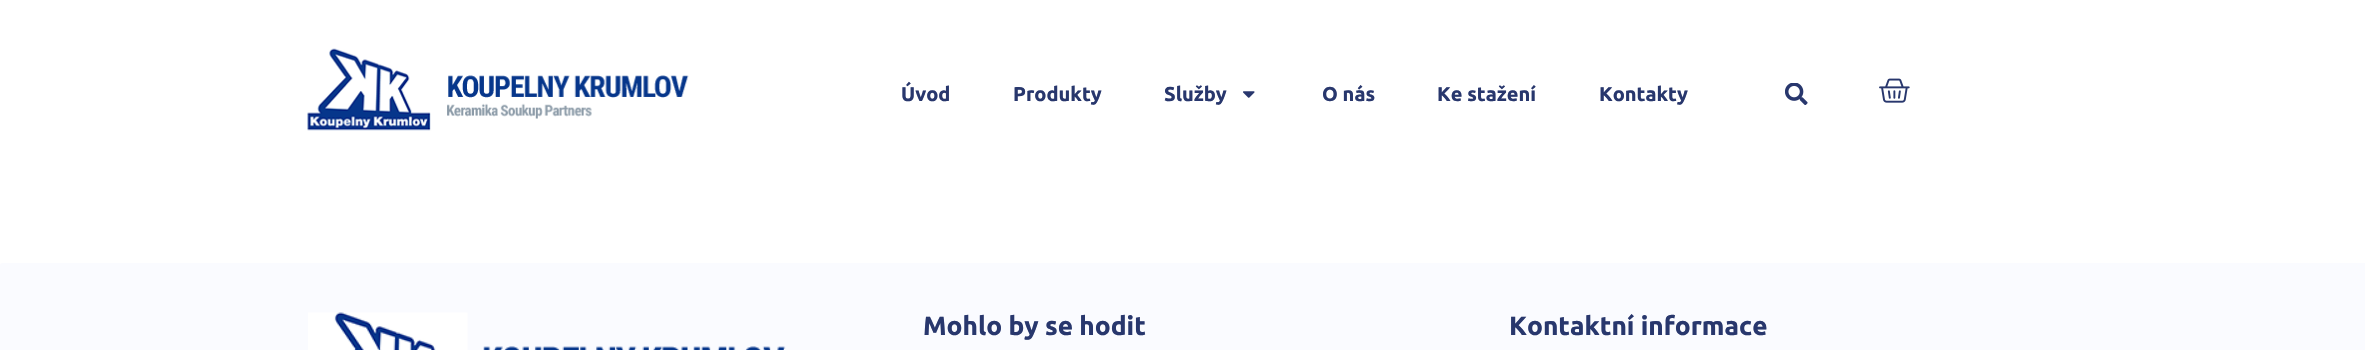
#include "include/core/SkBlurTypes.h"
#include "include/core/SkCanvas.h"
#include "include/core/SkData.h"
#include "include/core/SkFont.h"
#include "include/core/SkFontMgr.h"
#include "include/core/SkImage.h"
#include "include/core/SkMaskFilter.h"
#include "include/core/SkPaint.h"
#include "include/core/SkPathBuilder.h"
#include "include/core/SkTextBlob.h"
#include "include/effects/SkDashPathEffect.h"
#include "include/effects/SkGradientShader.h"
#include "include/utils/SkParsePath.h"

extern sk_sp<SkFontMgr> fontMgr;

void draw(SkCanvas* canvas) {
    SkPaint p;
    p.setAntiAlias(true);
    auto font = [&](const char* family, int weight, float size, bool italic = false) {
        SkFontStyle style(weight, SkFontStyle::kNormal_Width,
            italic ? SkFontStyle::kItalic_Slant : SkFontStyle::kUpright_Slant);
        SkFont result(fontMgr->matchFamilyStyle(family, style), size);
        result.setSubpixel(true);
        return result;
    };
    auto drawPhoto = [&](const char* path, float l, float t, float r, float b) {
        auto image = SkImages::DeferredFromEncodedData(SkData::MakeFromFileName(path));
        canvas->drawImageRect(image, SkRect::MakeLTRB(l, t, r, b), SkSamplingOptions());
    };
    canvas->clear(0xFFFFFFFF);
    drawPhoto("media/1.png", 307, 48, 689, 131);
    auto font1 = font("Ubuntu", 700, 20);
    p.setColor(0xFF28376D);
    {
        const struct { const char* s; float x, y; } items[] = {
            {"Úvod", 901, 101},
            {"Produkty", 1013, 101},
            {"Služby", 1164, 101},
        };
        for (auto [s, x, y] : items) {
            canvas->drawString(s, x, y, font1, p);
        }
    }
    drawPhoto("media/2.png", 1243, 91, 1255, 98);
    {
        const struct { const char* s; float x, y; } items[] = {
            {"O nás", 1322, 101},
            {"Ke stažení", 1437, 101},
            {"Kontakty", 1599, 101},
        };
        for (auto [s, x, y] : items) {
            canvas->drawString(s, x, y, font1, p);
        }
    }
    drawPhoto("media/3.png", 1785, 83, 1808, 105);
    drawPhoto("media/4.png", 1879, 78, 1910, 103);
    p.setColor(0xFFFAFBFF);
    canvas->drawPath(SkPathBuilder().moveTo(2.5f, 263).lineTo(2365, 263).lineTo(2365, 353).lineTo(0, 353).lineTo(0, 265.5f).cubicTo(0, 264, 1, 263, 2.5f, 263).close().detach(), p);
    drawPhoto("media/5.png", 308, 312, 786, 350);
    auto font2 = font("Ubuntu", 700, 26.25f);
    p.setColor(0xFF28376D);
    canvas->drawString("Mohlo by se hodit", 923, 335, font2, p);
    canvas->drawString("Kontaktní informace", 1509, 335, font2, p);
}
